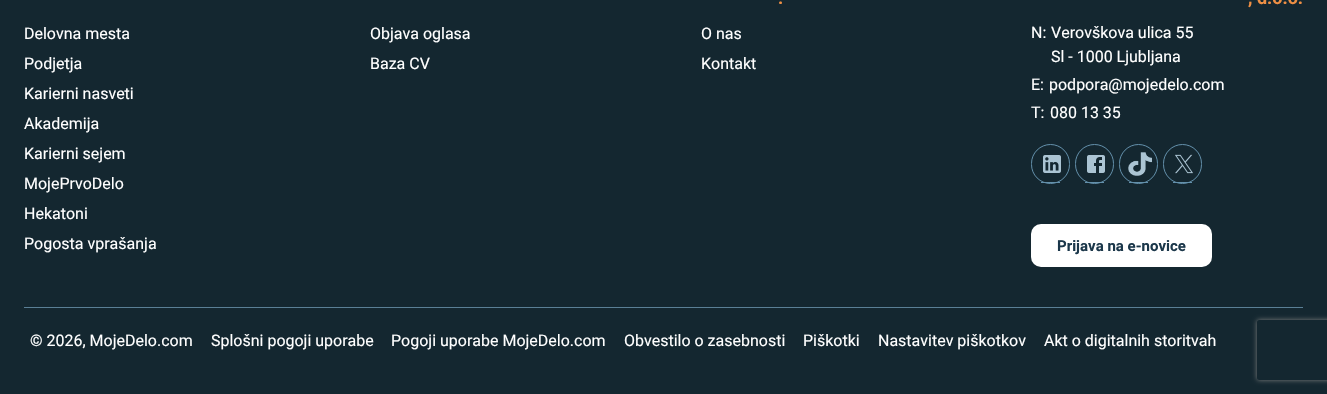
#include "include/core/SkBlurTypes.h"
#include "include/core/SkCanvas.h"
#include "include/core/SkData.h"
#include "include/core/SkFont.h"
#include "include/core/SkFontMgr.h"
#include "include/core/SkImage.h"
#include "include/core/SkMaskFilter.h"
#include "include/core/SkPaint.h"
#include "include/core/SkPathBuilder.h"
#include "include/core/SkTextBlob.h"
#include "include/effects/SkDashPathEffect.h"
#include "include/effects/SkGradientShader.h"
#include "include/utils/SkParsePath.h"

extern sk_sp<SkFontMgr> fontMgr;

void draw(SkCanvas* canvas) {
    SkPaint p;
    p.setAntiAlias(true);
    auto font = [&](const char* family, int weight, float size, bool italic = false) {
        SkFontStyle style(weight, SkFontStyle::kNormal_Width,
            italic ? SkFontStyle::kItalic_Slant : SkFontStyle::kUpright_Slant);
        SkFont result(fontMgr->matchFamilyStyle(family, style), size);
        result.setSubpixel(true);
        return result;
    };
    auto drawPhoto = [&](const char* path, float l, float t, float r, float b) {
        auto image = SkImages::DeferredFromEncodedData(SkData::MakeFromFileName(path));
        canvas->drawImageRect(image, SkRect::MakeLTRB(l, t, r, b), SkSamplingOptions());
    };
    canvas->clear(0xFF142730);
    p.setColor(0xFF5A7F95);
    canvas->drawRect(SkRect::MakeLTRB(24, 307, 1303, 308), p);
    auto font1 = font("Roboto", 400, 16);
    p.setColor(0xFFFFFFFF);
    {
        const struct { const char* s; float x, y; } items[] = {
            {"Delovna mesta", 24, 39},
            {"Podjetja", 24, 69},
            {"Karierni nasveti", 24, 99},
            {"Akademija", 24, 129},
            {"Karierni sejem", 24, 159},
            {"MojePrvoDelo", 24, 189},
            {"Hekatoni", 24, 219},
            {"Pogosta vprašanja", 24, 249},
            {"Objava oglasa", 370, 39},
            {"Baza CV", 370, 69},
        };
        for (auto [s, x, y] : items) {
            canvas->drawString(s, x, y, font1, p);
        }
    }
    auto font2 = font("Roboto", 700, 18);
    p.setColor(0xFFEE8F44);
    canvas->drawString(".", 778, 4, font2, p);
    p.setColor(0xFFFFFFFF);
    canvas->drawString("O nas", 701, 39, font1, p);
    canvas->drawString("Kontakt", 701, 69, font1, p);
    p.setColor(0xFFEE8F44);
    canvas->drawString(", d.o.o.", 1248, 4, font2, p);
    p.setColor(0xFFFFFFFF);
    {
        const struct { const char* s; float x, y; } items[] = {
            {"N:", 1031, 38},
            {"Verovškova ulica 55", 1051, 38},
            {"Sl - 1000 Ljubljana", 1051, 62},
            {"E:", 1031, 90},
            {"podpora@mojedelo.com", 1049, 90},
            {"T:", 1031, 118},
            {"080 13 35", 1050, 118},
        };
        for (auto [s, x, y] : items) {
            canvas->drawString(s, x, y, font1, p);
        }
    }
    p.setStyle(SkPaint::kStroke_Style);
    p.setStrokeWidth(1);
    p.setColor(0xFF6390AB);
    canvas->drawRoundRect(SkRect::MakeLTRB(1031.5f, 144.5f, 1069.5f, 183.5f), 19, 19, p);
    p.setStyle(SkPaint::kFill_Style);
    canvas->drawRect(SkRect::MakeLTRB(1041, 182, 1060, 183), p);
    drawPhoto("media/1.png", 1043, 155, 1061, 173);
    p.setStyle(SkPaint::kStroke_Style);
    canvas->drawRoundRect(SkRect::MakeLTRB(1075.5f, 144.5f, 1113.5f, 183.5f), 19, 19, p);
    p.setStyle(SkPaint::kFill_Style);
    canvas->drawRect(SkRect::MakeLTRB(1085, 182, 1104, 183), p);
    drawPhoto("media/2.png", 1087, 155, 1105, 173);
    p.setStyle(SkPaint::kStroke_Style);
    canvas->drawRoundRect(SkRect::MakeLTRB(1119.5f, 144.5f, 1157.5f, 183.5f), 19, 19, p);
    p.setStyle(SkPaint::kFill_Style);
    canvas->drawRect(SkRect::MakeLTRB(1129, 182, 1148, 183), p);
    drawPhoto("media/3.png", 1128, 152, 1152, 176);
    p.setStyle(SkPaint::kStroke_Style);
    canvas->drawRoundRect(SkRect::MakeLTRB(1163.5f, 144.5f, 1201.5f, 183.5f), 19, 19, p);
    p.setStyle(SkPaint::kFill_Style);
    canvas->drawRect(SkRect::MakeLTRB(1173, 182, 1192, 183), p);
    drawPhoto("media/4.png", 1175, 154, 1193, 174);
    p.setColor(0xFFFFFFFF);
    canvas->drawRoundRect(SkRect::MakeLTRB(1031, 224, 1212, 267), 10, 10, p);
    auto font3 = font("Roboto", 700, 15);
    p.setColor(0xFF1B374A);
    canvas->drawString("Prijava na e-novice", 1057, 251, font3, p);
    p.setColor(0xFFFFFFFF);
    {
        const struct { const char* s; float x, y; } items[] = {
            {"© 2026, MojeDelo.com", 30, 346},
            {"Splošni pogoji uporabe", 211, 346},
            {"Pogoji uporabe MojeDelo.com", 391, 346},
            {"Obvestilo o zasebnosti", 624, 346},
            {"Piškotki", 803, 346},
            {"Nastavitev piškotkov", 878, 346},
            {"Akt o digitalnih storitvah", 1044, 346},
        };
        for (auto [s, x, y] : items) {
            canvas->drawString(s, x, y, font1, p);
        }
    }
    canvas->save();
    canvas->clipPath(SkPathBuilder(SkPathFillType::kEvenOdd).moveTo(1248, 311).lineTo(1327, 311).lineTo(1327, 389).lineTo(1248, 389).close().moveTo(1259, 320).lineTo(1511, 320).cubicTo(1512, 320, 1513, 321, 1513, 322).lineTo(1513, 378).cubicTo(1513, 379, 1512, 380, 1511, 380).lineTo(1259, 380).cubicTo(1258, 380, 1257, 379, 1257, 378).lineTo(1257, 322).cubicTo(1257, 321, 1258, 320, 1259, 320).close().detach(), true);
    p.setColor(0xFF808080);
    p.setMaskFilter(SkMaskFilter::MakeBlur(kNormal_SkBlurStyle, 2.5f));
    canvas->drawRoundRect(SkRect::MakeLTRB(1257, 320, 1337, 380), 2, 2, p);
    p.setMaskFilter(nullptr);
    canvas->restore();
}
